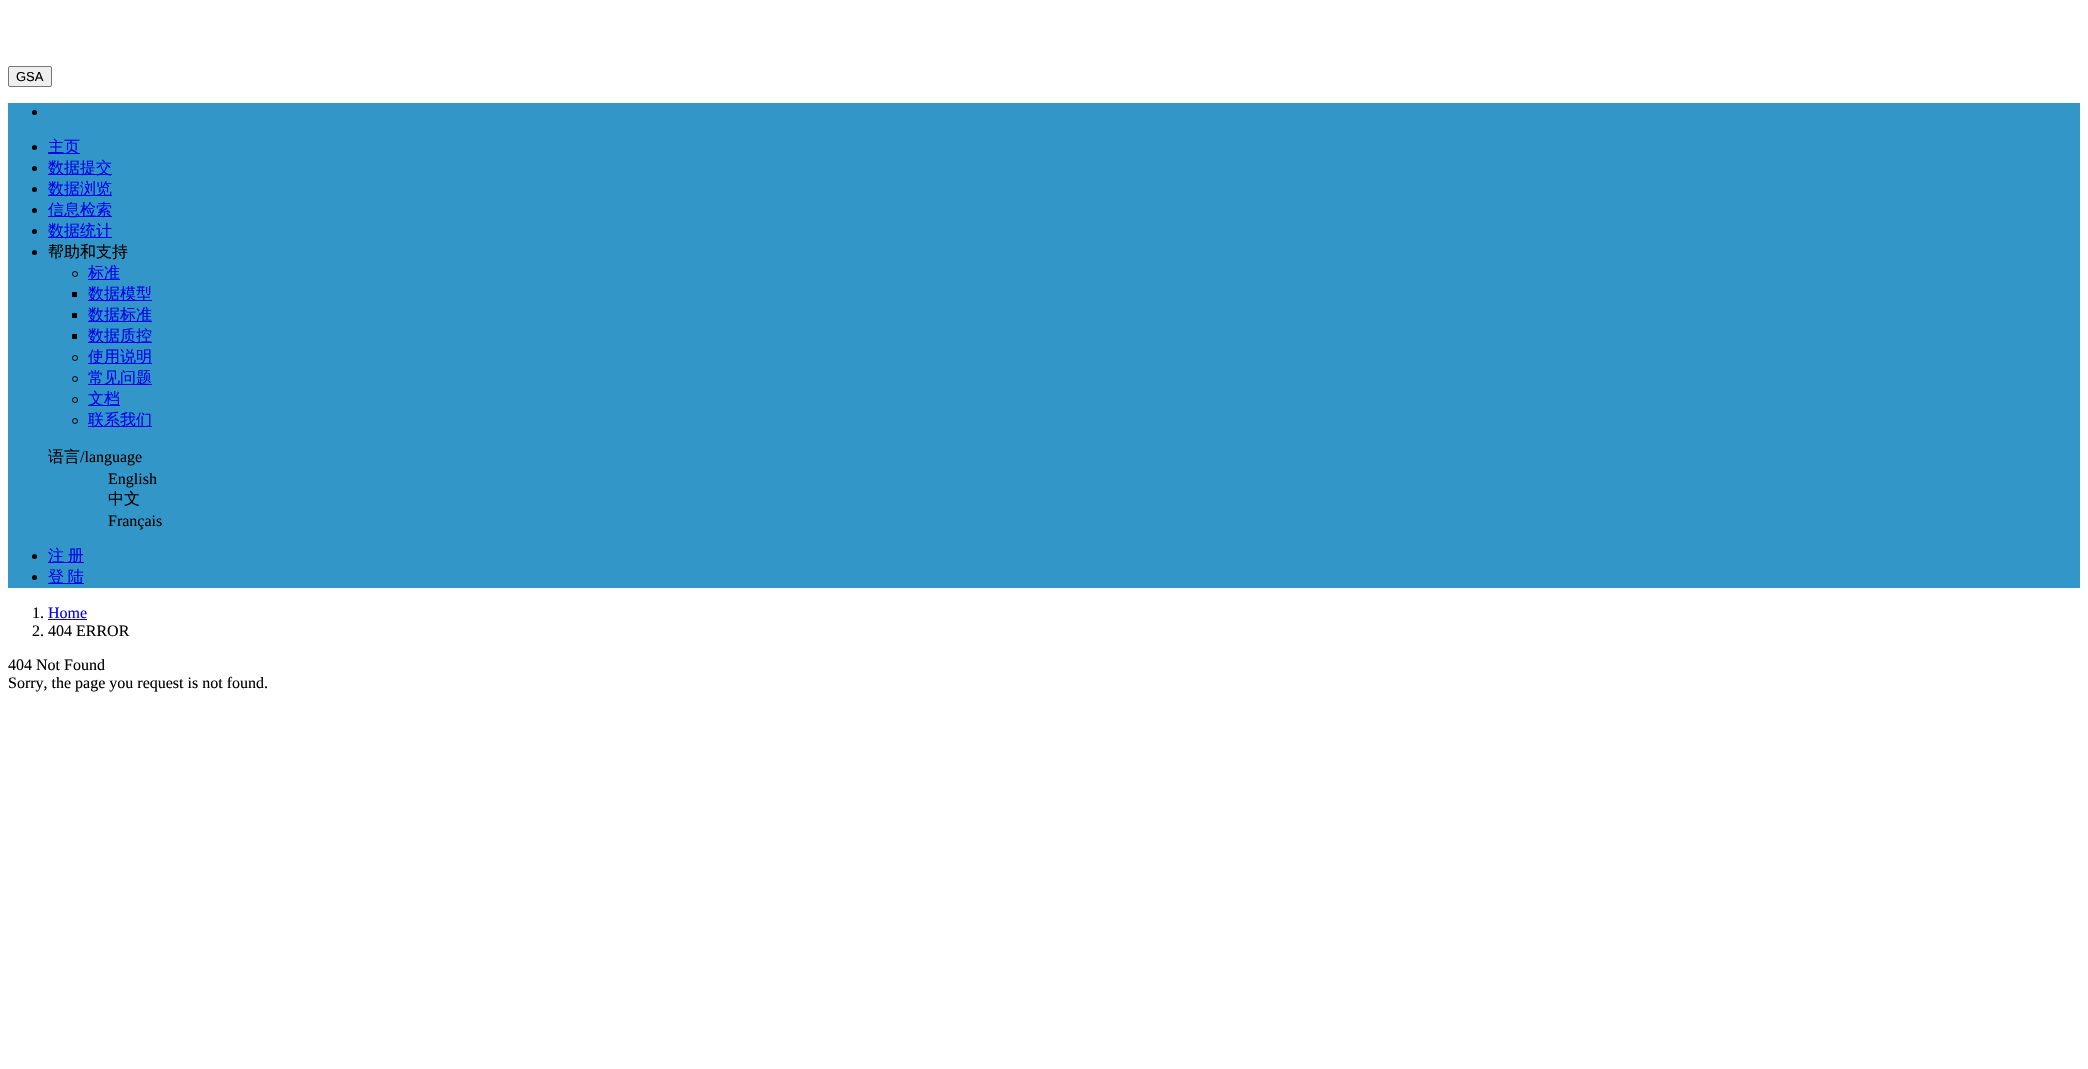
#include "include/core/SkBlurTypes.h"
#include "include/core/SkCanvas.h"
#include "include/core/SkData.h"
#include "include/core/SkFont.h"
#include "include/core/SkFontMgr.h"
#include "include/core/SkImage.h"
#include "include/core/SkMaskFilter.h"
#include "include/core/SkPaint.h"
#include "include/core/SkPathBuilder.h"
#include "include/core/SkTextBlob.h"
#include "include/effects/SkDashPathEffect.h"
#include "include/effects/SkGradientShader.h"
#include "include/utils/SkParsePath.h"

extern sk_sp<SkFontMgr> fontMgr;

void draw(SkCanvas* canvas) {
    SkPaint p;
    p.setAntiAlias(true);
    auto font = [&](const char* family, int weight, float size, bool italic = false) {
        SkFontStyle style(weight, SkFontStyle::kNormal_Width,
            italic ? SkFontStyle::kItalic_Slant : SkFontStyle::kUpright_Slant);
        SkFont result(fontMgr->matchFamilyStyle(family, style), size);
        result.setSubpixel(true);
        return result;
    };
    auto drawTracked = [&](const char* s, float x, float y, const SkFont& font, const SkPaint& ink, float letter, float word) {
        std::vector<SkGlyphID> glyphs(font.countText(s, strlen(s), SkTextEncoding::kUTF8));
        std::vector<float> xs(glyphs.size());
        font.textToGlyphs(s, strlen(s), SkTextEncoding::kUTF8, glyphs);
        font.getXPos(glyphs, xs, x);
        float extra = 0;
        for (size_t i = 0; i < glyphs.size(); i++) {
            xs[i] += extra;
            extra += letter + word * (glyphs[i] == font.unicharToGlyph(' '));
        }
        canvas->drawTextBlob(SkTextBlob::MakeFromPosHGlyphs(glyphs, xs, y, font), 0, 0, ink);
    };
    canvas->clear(0xFFFFFFFF);
    p.setColor(0xFFEFEFEF);
    canvas->drawRoundRect(SkRect::MakeLTRB(8.5f, 66.5f, 51.5f, 86.5f), 1.5f, 1.5f, p);
    p.setStyle(SkPaint::kStroke_Style);
    p.setStrokeWidth(1);
    p.setColor(0xFF767676);
    canvas->drawRoundRect(SkRect::MakeLTRB(8.5f, 66.5f, 51.5f, 86.5f), 1.5f, 1.5f, p);
    auto font1 = font("Liberation Sans", 400, 13);
    p.setStyle(SkPaint::kFill_Style);
    p.setColor(0xFF000000);
    canvas->drawString("GSA", 16, 81, font1, p);
    p.setColor(0xFF3296C8);
    canvas->drawRect(SkRect::MakeLTRB(8, 103, 2080, 588), p);
    p.setColor(0xFF000000);
    canvas->drawCircle(34.5f, 112.5f, 2.5f, p);
    canvas->drawCircle(34.5f, 147.5f, 2.5f, p);
    p.setColor(0xFF0000EE);
    canvas->drawRect(SkRect::MakeLTRB(48, 153, 80, 154), p);
    auto font2 = font("WenQuanYi Zen Hei", 500, 16);
    canvas->drawString("主页", 48, 152, font2, p);
    p.setColor(0xFF000000);
    canvas->drawCircle(34.5f, 168.5f, 2.5f, p);
    p.setColor(0xFF0000EE);
    canvas->drawRect(SkRect::MakeLTRB(48, 174, 112, 175), p);
    canvas->drawString("数据提交", 48, 173, font2, p);
    p.setColor(0xFF000000);
    canvas->drawCircle(34.5f, 189.5f, 2.5f, p);
    p.setColor(0xFF0000EE);
    canvas->drawRect(SkRect::MakeLTRB(48, 195, 112, 196), p);
    canvas->drawString("数据浏览", 48, 194, font2, p);
    p.setColor(0xFF000000);
    canvas->drawCircle(34.5f, 210.5f, 2.5f, p);
    p.setColor(0xFF0000EE);
    canvas->drawRect(SkRect::MakeLTRB(48, 216, 112, 217), p);
    canvas->drawString("信息检索", 48, 215, font2, p);
    p.setColor(0xFF000000);
    canvas->drawCircle(34.5f, 231.5f, 2.5f, p);
    p.setColor(0xFF0000EE);
    canvas->drawRect(SkRect::MakeLTRB(48, 237, 112, 238), p);
    canvas->drawString("数据统计", 48, 236, font2, p);
    p.setColor(0xFF000000);
    canvas->drawCircle(34.5f, 252.5f, 2.5f, p);
    canvas->drawString("帮助和支持", 48, 257, font2, p);
    p.setStyle(SkPaint::kStroke_Style);
    canvas->drawCircle(75, 274, 2.5f, p);
    p.setStyle(SkPaint::kFill_Style);
    p.setColor(0xFF0000EE);
    canvas->drawRect(SkRect::MakeLTRB(88, 279, 120, 280), p);
    canvas->drawString("标准", 88, 278, font2, p);
    p.setColor(0xFF000000);
    canvas->drawRect(SkRect::MakeLTRB(72, 292, 77, 297), p);
    p.setColor(0xFF0000EE);
    canvas->drawRect(SkRect::MakeLTRB(88, 300, 152, 301), p);
    canvas->drawString("数据模型", 88, 299, font2, p);
    p.setColor(0xFF000000);
    canvas->drawRect(SkRect::MakeLTRB(72, 313, 77, 318), p);
    p.setColor(0xFF0000EE);
    canvas->drawRect(SkRect::MakeLTRB(88, 321, 152, 322), p);
    canvas->drawString("数据标准", 88, 320, font2, p);
    p.setColor(0xFF000000);
    canvas->drawRect(SkRect::MakeLTRB(72, 334, 77, 339), p);
    p.setColor(0xFF0000EE);
    canvas->drawRect(SkRect::MakeLTRB(88, 342, 152, 343), p);
    canvas->drawString("数据质控", 88, 341, font2, p);
    p.setStyle(SkPaint::kStroke_Style);
    p.setColor(0xFF000000);
    canvas->drawCircle(75, 358, 2.5f, p);
    p.setStyle(SkPaint::kFill_Style);
    p.setColor(0xFF0000EE);
    canvas->drawRect(SkRect::MakeLTRB(88, 363, 152, 364), p);
    canvas->drawString("使用说明", 88, 362, font2, p);
    p.setStyle(SkPaint::kStroke_Style);
    p.setColor(0xFF000000);
    canvas->drawCircle(75, 379, 2.5f, p);
    p.setStyle(SkPaint::kFill_Style);
    p.setColor(0xFF0000EE);
    canvas->drawRect(SkRect::MakeLTRB(88, 384, 152, 385), p);
    canvas->drawString("常见问题", 88, 383, font2, p);
    p.setStyle(SkPaint::kStroke_Style);
    p.setColor(0xFF000000);
    canvas->drawCircle(75, 400, 2.5f, p);
    p.setStyle(SkPaint::kFill_Style);
    p.setColor(0xFF0000EE);
    canvas->drawRect(SkRect::MakeLTRB(88, 405, 120, 406), p);
    canvas->drawString("文档", 88, 404, font2, p);
    p.setStyle(SkPaint::kStroke_Style);
    p.setColor(0xFF000000);
    canvas->drawCircle(75, 421, 2.5f, p);
    p.setStyle(SkPaint::kFill_Style);
    p.setColor(0xFF0000EE);
    canvas->drawRect(SkRect::MakeLTRB(88, 426, 152, 427), p);
    canvas->drawString("联系我们", 88, 425, font2, p);
    p.setColor(0xFF000000);
    canvas->drawString("语言", 48, 462, font2, p);
    auto font3 = font("Liberation Serif", 400, 16);
    canvas->drawString("/language", 80, 462, font3, p);
    canvas->drawString("English", 108, 484, font3, p);
    canvas->drawString("中文", 108, 504, font2, p);
    canvas->drawString("Français", 108, 526, font3, p);
    canvas->drawCircle(34.5f, 556.5f, 2.5f, p);
    p.setColor(0xFF0000EE);
    canvas->drawRect(SkRect::MakeLTRB(48, 562, 84, 563), p);
    drawTracked("注 册", 48, 561, font2, p, 0, -1);
    p.setColor(0xFF000000);
    canvas->drawCircle(34.5f, 577.5f, 2.5f, p);
    p.setColor(0xFF0000EE);
    canvas->drawRect(SkRect::MakeLTRB(48, 583, 84, 584), p);
    drawTracked("登 陆", 48, 582, font2, p, 0, -1);
    p.setColor(0xFF000000);
    canvas->drawString("1.", 32, 618, font3, p);
    p.setColor(0xFF0000EE);
    canvas->drawString("Home", 48, 618, font3, p);
    canvas->drawRect(SkRect::MakeLTRB(48, 619, 87, 620), p);
    p.setColor(0xFF000000);
    {
        const struct { const char* s; float x, y; } items[] = {
            {"2. 404 ERROR", 32, 636},
            {"404 Not Found", 8, 670},
            {"Sorry, the page you request is not found.", 8, 688},
        };
        for (auto [s, x, y] : items) {
            canvas->drawString(s, x, y, font3, p);
        }
    }
}
